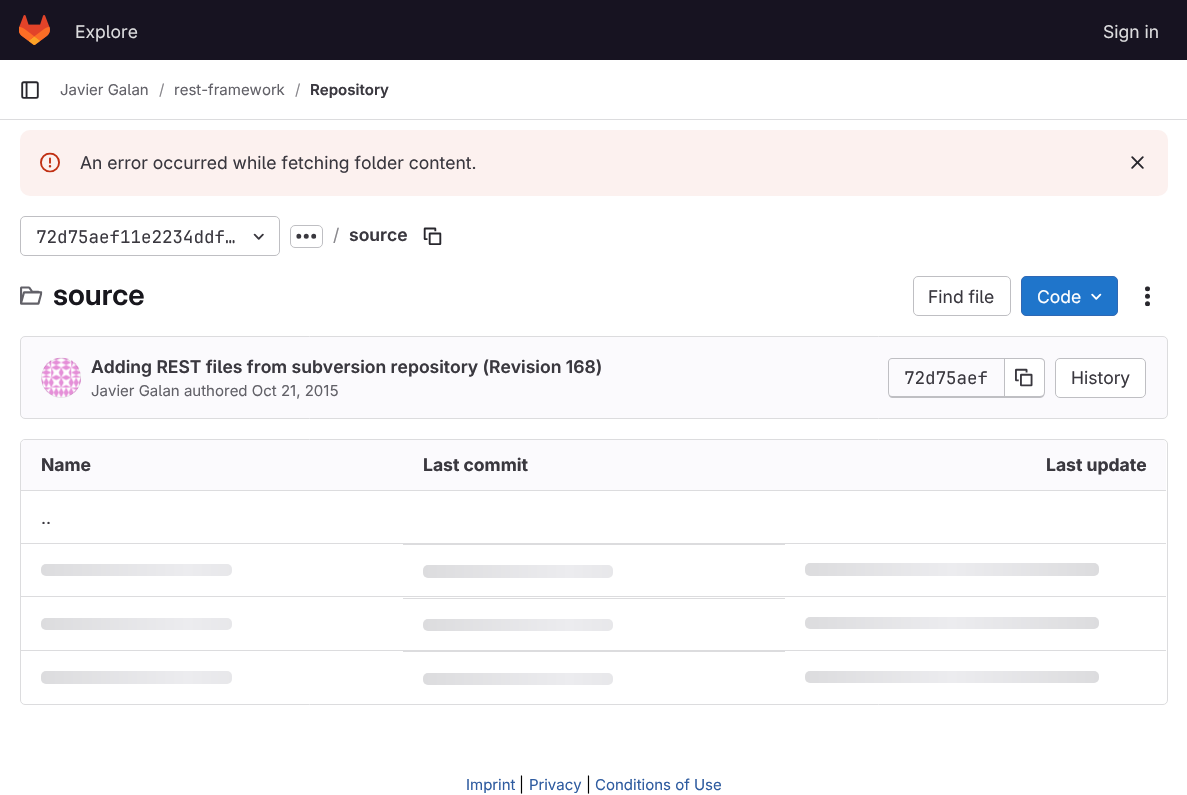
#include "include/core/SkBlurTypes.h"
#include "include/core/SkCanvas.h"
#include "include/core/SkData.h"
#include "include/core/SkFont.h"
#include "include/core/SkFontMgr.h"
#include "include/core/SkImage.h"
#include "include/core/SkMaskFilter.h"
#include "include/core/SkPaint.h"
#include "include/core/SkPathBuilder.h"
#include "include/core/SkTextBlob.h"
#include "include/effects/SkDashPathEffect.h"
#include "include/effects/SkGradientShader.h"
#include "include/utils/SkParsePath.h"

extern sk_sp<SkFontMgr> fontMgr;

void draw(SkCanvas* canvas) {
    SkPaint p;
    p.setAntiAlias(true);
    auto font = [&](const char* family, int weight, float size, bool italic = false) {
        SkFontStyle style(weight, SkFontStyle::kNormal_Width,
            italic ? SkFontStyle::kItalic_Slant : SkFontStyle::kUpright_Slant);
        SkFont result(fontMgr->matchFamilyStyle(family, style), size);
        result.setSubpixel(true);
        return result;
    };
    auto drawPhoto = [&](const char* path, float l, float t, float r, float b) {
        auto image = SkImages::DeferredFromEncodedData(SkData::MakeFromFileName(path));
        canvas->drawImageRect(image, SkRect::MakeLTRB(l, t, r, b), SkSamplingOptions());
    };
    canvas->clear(0xFFFFFFFF);
    p.setColor(0xFF171321);
    canvas->drawRect(SkRect::MakeLTRB(0, 0, 1187, 60), p);
    drawPhoto("media/1.png", 19, 15, 50, 45);
    auto font1 = font("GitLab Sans", 400, 17.5f);
    p.setColor(0xFFDCDCDE);
    canvas->drawString("Explore", 75, 38, font1, p);
    canvas->drawString("Sign in", 1103, 38, font1, p);
    canvas->drawRect(SkRect::MakeLTRB(0, 119, 1187, 120), p);
    drawPhoto("media/2.png", 21, 81, 39, 99);
    auto font2 = font("GitLab Sans", 400, 15);
    p.setColor(0xFF626168);
    canvas->drawString("Javier Galan", 60, 95, font2, p);
    p.setColor(0xFF89888D);
    canvas->drawString("/", 159, 95, font2, p);
    p.setColor(0xFF626168);
    canvas->drawString("rest-framework", 174, 95, font2, p);
    p.setColor(0xFF89888D);
    canvas->drawString("/", 295, 95, font2, p);
    auto font3 = font("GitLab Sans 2", 600, 15);
    p.setColor(0xFF3A383F);
    canvas->drawString("Repository", 310, 95, font3, p);
    p.setColor(0xFFFCF1EF);
    canvas->drawRoundRect(SkRect::MakeLTRB(20, 130, 1168, 196), 10, 10, p);
    drawPhoto("media/3.png", 40, 152, 60, 173);
    p.setColor(0xFF3A383F);
    canvas->drawString("An error occurred while fetching folder content.", 80, 169, font1, p);
    drawPhoto("media/4.png", 1131, 156, 1144, 169);
    p.setStyle(SkPaint::kStroke_Style);
    p.setStrokeWidth(1);
    p.setColor(0xFFBFBFC3);
    canvas->drawRoundRect(SkRect::MakeLTRB(20.5f, 216.5f, 279.5f, 255.5f), 4.5f, 4.5f, p);
    auto font4 = font("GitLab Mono", 400, 17.5f);
    p.setStyle(SkPaint::kFill_Style);
    p.setColor(0xFF3A383F);
    canvas->drawString("72d75aef11e2234ddf…", 36, 243, font4, p);
    drawPhoto("media/5.png", 253, 233, 264, 240);
    p.setStyle(SkPaint::kStroke_Style);
    p.setColor(0xFFBFBFC3);
    canvas->drawRoundRect(SkRect::MakeLTRB(290.5f, 225.5f, 322.5f, 247.5f), 4.5f, 4.5f, p);
    drawPhoto("media/6.png", 296, 233, 317, 239);
    p.setStyle(SkPaint::kFill_Style);
    p.setColor(0xFF89888D);
    canvas->drawString("/", 333, 241, font1, p);
    auto font5 = font("GitLab Sans 2", 600, 17.5f);
    p.setColor(0xFF3A383F);
    canvas->drawString("source", 349, 241, font5, p);
    drawPhoto("media/7.png", 423, 227, 442, 245);
    drawPhoto("media/8.png", 20, 286, 43, 305);
    auto font6 = font("GitLab Sans", 600, 29);
    p.setColor(0xFF18171D);
    canvas->drawString("source", 53, 305, font6, p);
    p.setStyle(SkPaint::kStroke_Style);
    p.setColor(0xFFBFBFC3);
    canvas->drawRoundRect(SkRect::MakeLTRB(913.5f, 276.5f, 1010.5f, 315.5f), 4.5f, 4.5f, p);
    p.setStyle(SkPaint::kFill_Style);
    p.setColor(0xFF3A383F);
    canvas->drawString("Find file", 928, 303, font1, p);
    p.setColor(0xFF1F75CB);
    canvas->drawRoundRect(SkRect::MakeLTRB(1021.5f, 276.5f, 1117.5f, 315.5f), 4.5f, 4.5f, p);
    p.setStyle(SkPaint::kStroke_Style);
    p.setColor(0xFF2F68B4);
    canvas->drawRoundRect(SkRect::MakeLTRB(1021.5f, 276.5f, 1117.5f, 315.5f), 4.5f, 4.5f, p);
    p.setStyle(SkPaint::kFill_Style);
    p.setColor(0xFFFFFFFF);
    canvas->drawString("Code", 1037, 303, font1, p);
    drawPhoto("media/9.png", 1091, 293, 1102, 300);
    drawPhoto("media/10.png", 1145, 286, 1150, 307);
    p.setColor(0xFFFBFAFD);
    canvas->drawRoundRect(SkRect::MakeLTRB(20.5f, 336.5f, 1167.5f, 418.5f), 4.5f, 4.5f, p);
    p.setStyle(SkPaint::kStroke_Style);
    p.setColor(0xFFDCDCDE);
    canvas->drawRoundRect(SkRect::MakeLTRB(20.5f, 336.5f, 1167.5f, 418.5f), 4.5f, 4.5f, p);
    drawPhoto("media/11.png", 41, 357, 81, 398);
    p.setColor(0x14050506);
    canvas->drawCircle(61, 378, 19.5f, p);
    p.setStyle(SkPaint::kFill_Style);
    p.setColor(0xFF3A383F);
    canvas->drawString("Adding REST files from subversion repository (Revision 168)", 91, 373, font5, p);
    p.setColor(0xFF626168);
    canvas->drawString("Javier Galan authored Oct 21, 2015", 91, 396, font2, p);
    p.setColor(0xFFBFBFC3);
    canvas->drawPath(SkPathBuilder(SkPathFillType::kEvenOdd).moveTo(892, 358).lineTo(1004, 358).lineTo(1004, 398).lineTo(892, 398).cubicTo(890, 398, 888, 395, 888, 392).lineTo(888, 362).cubicTo(888, 360, 890, 358, 892, 358).close().moveTo(892, 359).lineTo(1004, 359).lineTo(1004, 396).lineTo(892, 396).cubicTo(890, 396, 889, 395, 889, 392).lineTo(889, 362).cubicTo(889, 360, 890, 359, 892, 359).close().detach(), p);
    p.setColor(0xFF3A383F);
    canvas->drawString("72d75aef", 904, 384, font4, p);
    p.setColor(0xFFFFFFFF);
    canvas->drawPath(SkPathBuilder().moveTo(1005, 359).lineTo(1040, 359).cubicTo(1042, 359, 1044, 361, 1044, 363).lineTo(1044, 392).cubicTo(1044, 394, 1042, 396, 1040, 396).lineTo(1005, 396).close().detach(), p);
    p.setColor(0xFFBFBFC3);
    canvas->drawPath(SkPathBuilder(SkPathFillType::kEvenOdd).moveTo(1005, 358).lineTo(1040, 358).cubicTo(1043, 358, 1045, 360, 1045, 362).lineTo(1045, 392).cubicTo(1045, 395, 1043, 398, 1040, 398).lineTo(1005, 398).close().moveTo(1005, 359).lineTo(1040, 359).cubicTo(1042, 359, 1044, 360, 1044, 362).lineTo(1044, 392).cubicTo(1044, 395, 1042, 396, 1040, 396).lineTo(1005, 396).close().detach(), p);
    canvas->drawRect(SkRect::MakeLTRB(1004, 358, 1005, 398), p);
    drawPhoto("media/12.png", 1015, 368, 1033, 387);
    p.setColor(0xFFFFFFFF);
    canvas->drawRoundRect(SkRect::MakeLTRB(1055.5f, 358.5f, 1145.5f, 397.5f), 4.5f, 4.5f, p);
    p.setStyle(SkPaint::kStroke_Style);
    p.setColor(0xFFBFBFC3);
    canvas->drawRoundRect(SkRect::MakeLTRB(1055.5f, 358.5f, 1145.5f, 397.5f), 4.5f, 4.5f, p);
    p.setStyle(SkPaint::kFill_Style);
    p.setColor(0xFF3A383F);
    canvas->drawString("History", 1071, 384, font1, p);
    p.setStyle(SkPaint::kStroke_Style);
    p.setColor(0xFFDCDCDE);
    canvas->drawRoundRect(SkRect::MakeLTRB(20.5f, 439.5f, 1167.5f, 704.5f), 4.5f, 4.5f, p);
    p.setStyle(SkPaint::kFill_Style);
    p.setColor(0xFFFBFAFD);
    canvas->drawPath(SkPathBuilder().moveTo(25, 440).lineTo(403, 440).lineTo(403, 491).lineTo(21, 491).lineTo(21, 444).cubicTo(21, 442, 23, 440, 25, 440).close().detach(), p);
    auto font7 = font("GitLab Sans", 700, 17.5f);
    p.setColor(0xFF3A383F);
    canvas->drawString("Name", 41, 471, font7, p);
    p.setColor(0xFFFBFAFD);
    canvas->drawRect(SkRect::MakeLTRB(403, 440, 785, 490), p);
    p.setColor(0xFF3A383F);
    canvas->drawString("Last commit", 423, 471, font7, p);
    p.setColor(0xFFFBFAFD);
    canvas->drawPath(SkPathBuilder().moveTo(785, 440).lineTo(1162, 440).cubicTo(1164, 440, 1166, 442, 1166, 444).lineTo(1166, 491).lineTo(785, 491).close().detach(), p);
    p.setColor(0xFF3A383F);
    canvas->drawString("Last update", 1046, 471, font7, p);
    p.setColor(0xFFDCDCDE);
    canvas->drawRect(SkRect::MakeLTRB(21, 543, 1166, 544), p);
    canvas->drawRect(SkRect::MakeLTRB(21, 490, 1166, 491), p);
    p.setColor(0xFF3A383F);
    canvas->drawString("..", 41, 524, font1, p);
    p.setColor(0xFFDCDCDE);
    canvas->drawRect(SkRect::MakeLTRB(21, 596, 1166, 597), p);
    {
        const SkColor colors[] = {0xFFDCDCDE, 0xFFECECEF, 0xFFDCDCDE};
        const float stops[] = {0, 0.5f, 1};
        const SkPoint ends[] = {{41, 564}, {335, 564}};
        p.setShader(SkGradientShader::MakeLinear(ends, colors, stops, 3, SkTileMode::kClamp));
        p.setAlpha(255);
    }
    canvas->drawRoundRect(SkRect::MakeLTRB(41, 564, 232, 576), 5, 5, p);
    p.setShader(nullptr);
    p.setColor(0xFFDCDCDE);
    canvas->drawRect(SkRect::MakeLTRB(403, 544, 785, 545), p);
    {
        const SkColor colors[] = {0xFFDCDCDE, 0xFFECECEF, 0xFFDCDCDE};
        const float stops[] = {0, 0.5f, 1};
        const SkPoint ends[] = {{423, 565}, {716, 565}};
        p.setShader(SkGradientShader::MakeLinear(ends, colors, stops, 3, SkTileMode::kClamp));
        p.setAlpha(255);
    }
    canvas->drawRoundRect(SkRect::MakeLTRB(423, 565, 613, 578), 5, 5, p);
    {
        const SkColor colors[] = {0xFFDCDCDE, 0xFFECECEF, 0xFFDCDCDE};
        const float stops[] = {0, 0.5f, 1};
        const SkPoint ends[] = {{805, 563}, {1099, 563}};
        p.setShader(SkGradientShader::MakeLinear(ends, colors, stops, 3, SkTileMode::kClamp));
        p.setAlpha(255);
    }
    canvas->drawRoundRect(SkRect::MakeLTRB(805, 563, 1099, 576), 5, 5, p);
    p.setShader(nullptr);
    p.setColor(0xFFDCDCDE);
    canvas->drawRect(SkRect::MakeLTRB(21, 650, 1166, 651), p);
    {
        const SkColor colors[] = {0xFFDCDCDE, 0xFFECECEF, 0xFFDCDCDE};
        const float stops[] = {0, 0.5f, 1};
        const SkPoint ends[] = {{41, 618}, {335, 618}};
        p.setShader(SkGradientShader::MakeLinear(ends, colors, stops, 3, SkTileMode::kClamp));
        p.setAlpha(255);
    }
    canvas->drawRoundRect(SkRect::MakeLTRB(41, 618, 232, 630), 5, 5, p);
    p.setShader(nullptr);
    p.setColor(0xFFDCDCDE);
    canvas->drawRect(SkRect::MakeLTRB(403, 598, 785, 599), p);
    {
        const SkColor colors[] = {0xFFDCDCDE, 0xFFECECEF, 0xFFDCDCDE};
        const float stops[] = {0, 0.5f, 1};
        const SkPoint ends[] = {{423, 619}, {716, 619}};
        p.setShader(SkGradientShader::MakeLinear(ends, colors, stops, 3, SkTileMode::kClamp));
        p.setAlpha(255);
    }
    canvas->drawRoundRect(SkRect::MakeLTRB(423, 619, 613, 631), 5, 5, p);
    {
        const SkColor colors[] = {0xFFDCDCDE, 0xFFECECEF, 0xFFDCDCDE};
        const float stops[] = {0, 0.5f, 1};
        const SkPoint ends[] = {{805, 617}, {1099, 617}};
        p.setShader(SkGradientShader::MakeLinear(ends, colors, stops, 3, SkTileMode::kClamp));
        p.setAlpha(255);
    }
    canvas->drawRoundRect(SkRect::MakeLTRB(805, 617, 1099, 629), 5, 5, p);
    {
        const SkColor colors[] = {0xFFDCDCDE, 0xFFECECEF, 0xFFDCDCDE};
        const float stops[] = {0, 0.5f, 1};
        const SkPoint ends[] = {{41, 671}, {335, 671}};
        p.setShader(SkGradientShader::MakeLinear(ends, colors, stops, 3, SkTileMode::kClamp));
        p.setAlpha(255);
    }
    canvas->drawRoundRect(SkRect::MakeLTRB(41, 671, 232, 684), 5, 5, p);
    p.setShader(nullptr);
    p.setColor(0xFFDCDCDE);
    canvas->drawRect(SkRect::MakeLTRB(403, 651, 785, 652), p);
    {
        const SkColor colors[] = {0xFFDCDCDE, 0xFFECECEF, 0xFFDCDCDE};
        const float stops[] = {0, 0.5f, 1};
        const SkPoint ends[] = {{423, 673}, {716, 673}};
        p.setShader(SkGradientShader::MakeLinear(ends, colors, stops, 3, SkTileMode::kClamp));
        p.setAlpha(255);
    }
    canvas->drawRoundRect(SkRect::MakeLTRB(423, 673, 613, 685), 5, 5, p);
    {
        const SkColor colors[] = {0xFFDCDCDE, 0xFFECECEF, 0xFFDCDCDE};
        const float stops[] = {0, 0.5f, 1};
        const SkPoint ends[] = {{805, 671}, {1099, 671}};
        p.setShader(SkGradientShader::MakeLinear(ends, colors, stops, 3, SkTileMode::kClamp));
        p.setAlpha(255);
    }
    canvas->drawRoundRect(SkRect::MakeLTRB(805, 671, 1099, 683), 5, 5, p);
    p.setShader(nullptr);
    p.setColor(0xFF2F5CA0);
    canvas->drawString("Imprint", 466, 790, font2, p);
    p.setColor(0xFF000000);
    canvas->drawString("|", 519, 790, font2, p);
    p.setColor(0xFF2F5CA0);
    canvas->drawString("Privacy", 529, 790, font2, p);
    p.setColor(0xFF000000);
    canvas->drawString("|", 586, 790, font2, p);
    p.setColor(0xFF2F5CA0);
    canvas->drawString("Conditions of Use", 595, 790, font2, p);
}
